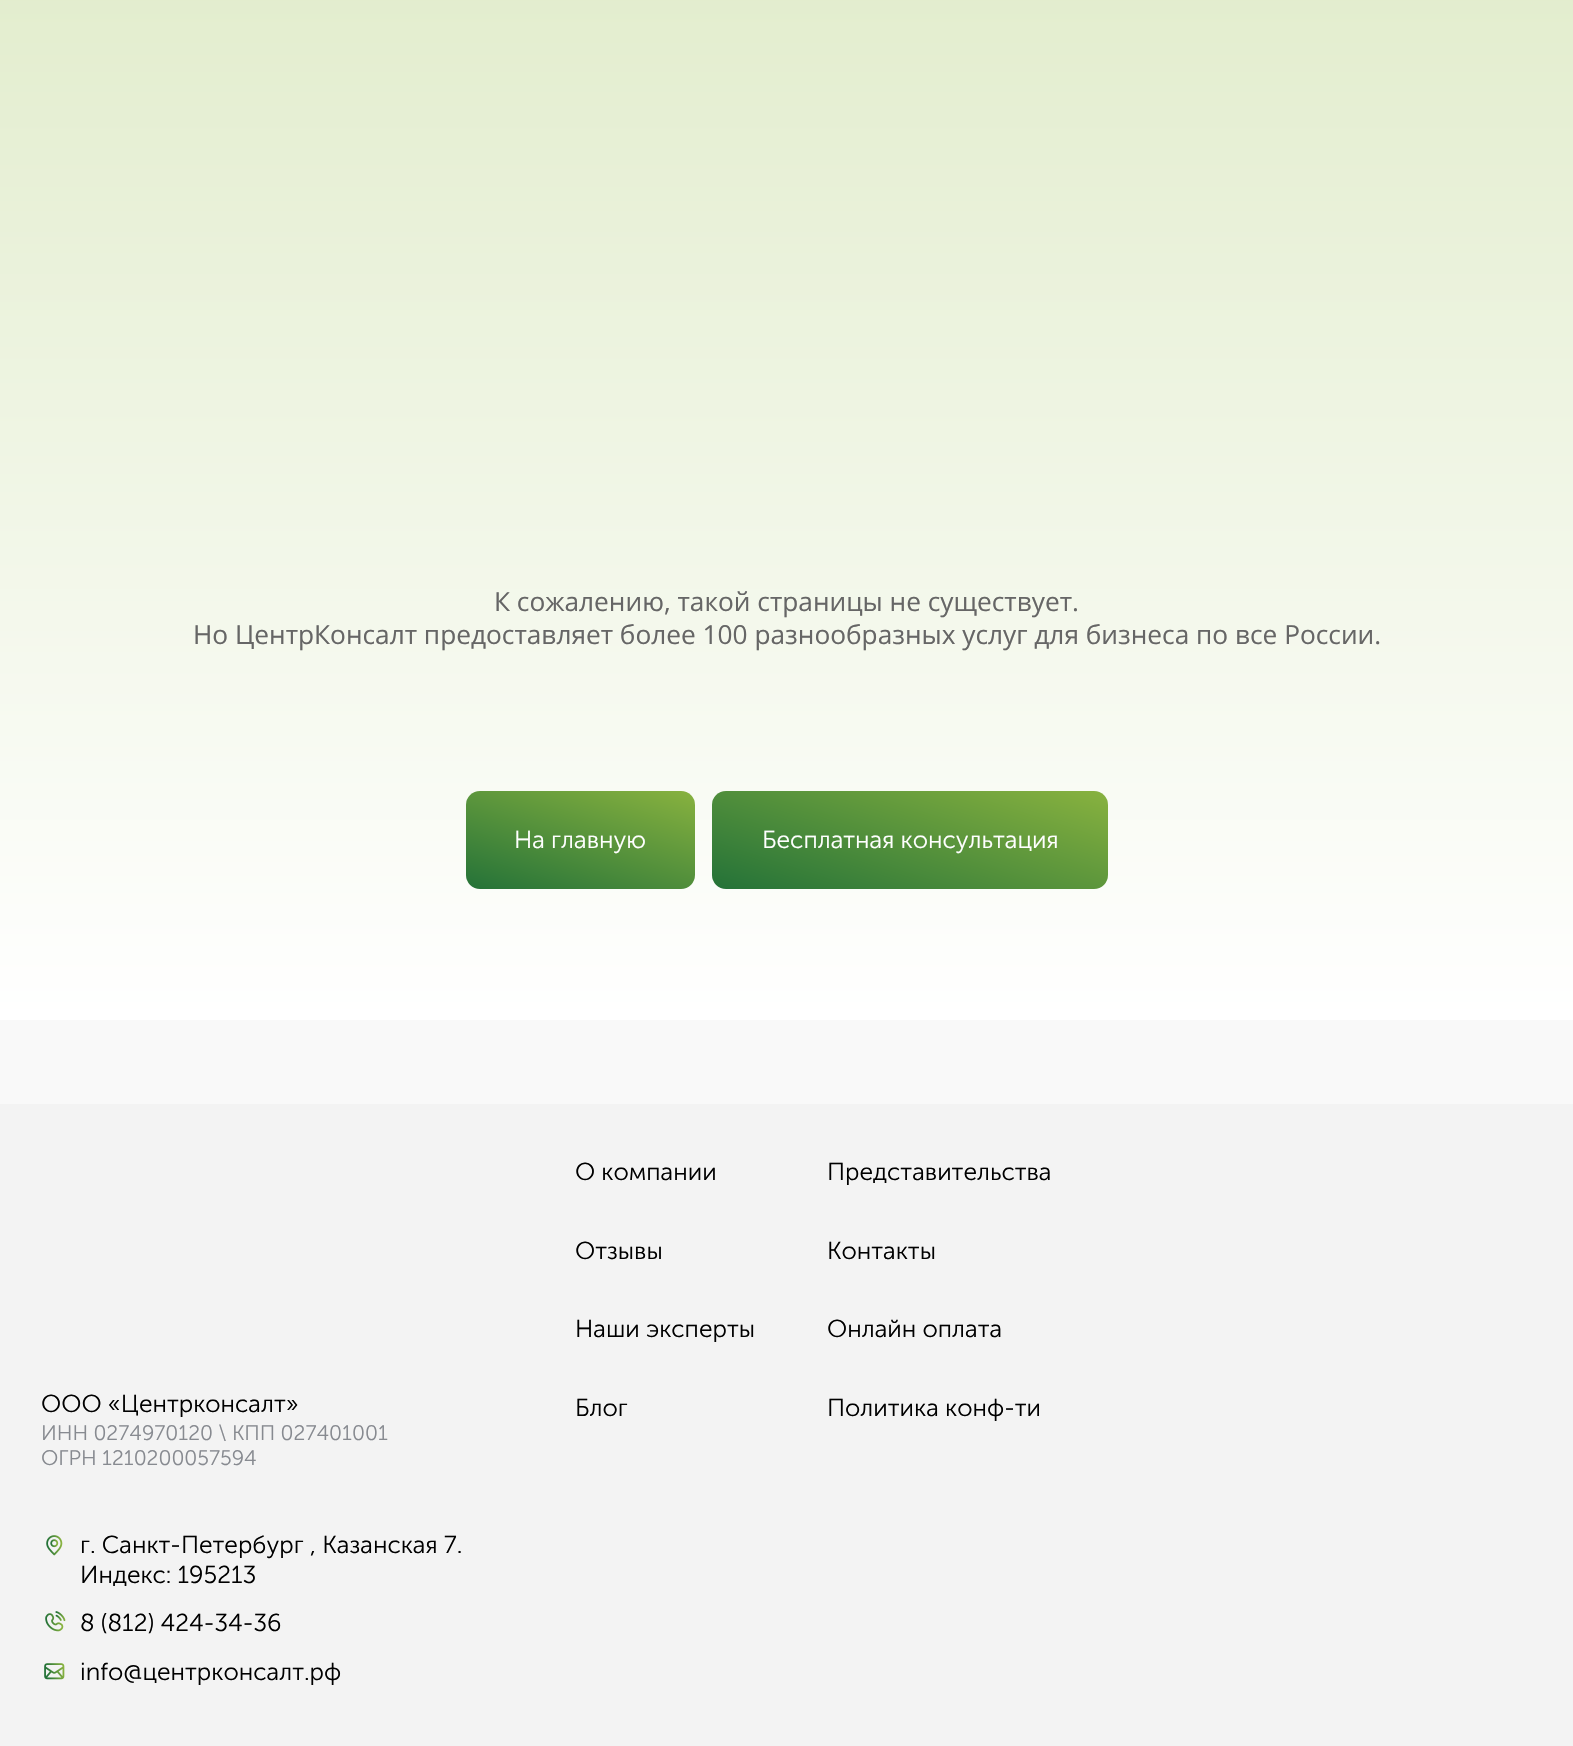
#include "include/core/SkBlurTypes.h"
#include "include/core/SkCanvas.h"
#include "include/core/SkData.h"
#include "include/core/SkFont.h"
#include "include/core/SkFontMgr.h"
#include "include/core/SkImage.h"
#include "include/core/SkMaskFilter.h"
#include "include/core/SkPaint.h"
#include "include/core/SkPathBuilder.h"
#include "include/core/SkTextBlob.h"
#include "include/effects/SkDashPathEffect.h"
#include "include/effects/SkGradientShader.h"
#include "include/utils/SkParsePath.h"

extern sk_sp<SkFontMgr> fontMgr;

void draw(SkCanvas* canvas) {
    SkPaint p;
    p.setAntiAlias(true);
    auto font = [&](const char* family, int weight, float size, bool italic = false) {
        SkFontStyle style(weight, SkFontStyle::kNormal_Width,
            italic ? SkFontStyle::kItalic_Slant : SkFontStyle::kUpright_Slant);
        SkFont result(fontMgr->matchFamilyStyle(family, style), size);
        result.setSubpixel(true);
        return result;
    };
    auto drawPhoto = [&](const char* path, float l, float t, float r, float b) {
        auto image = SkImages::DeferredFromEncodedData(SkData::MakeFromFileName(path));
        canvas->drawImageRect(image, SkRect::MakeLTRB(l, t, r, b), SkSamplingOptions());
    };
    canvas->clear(0xFFF9F9F9);
    {
        const SkColor colors[] = {0xFFE1ECCB, 0xFFFFFFFF};
        const float stops[] = {0, 1};
        const SkPoint ends[] = {{787, -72}, {787, 1020}};
        p.setShader(SkGradientShader::MakeLinear(ends, colors, stops, 2, SkTileMode::kClamp));
        p.setAlpha(255);
    }
    canvas->drawRect(SkRect::MakeLTRB(0, 0, 1573, 1020), p);
    auto font1 = font("Open Sans", 400, 26.25f);
    p.setShader(nullptr);
    p.setColor(0xFF666666);
    canvas->drawString("К сожалению, такой страницы не существует.", 494, 611, font1, p);
    canvas->drawString("Но ЦентрКонсалт предоставляет более 100 разнообразных услуг для бизнеса по все России.", 193, 644, font1, p);
    {
        const SkColor colors[] = {0xFF88B23F, 0xFF247238};
        const float stops[] = {0, 1};
        const SkPoint ends[] = {{605, 762}, {555, 918}};
        p.setShader(SkGradientShader::MakeLinear(ends, colors, stops, 2, SkTileMode::kClamp));
        p.setAlpha(255);
    }
    canvas->drawRoundRect(SkRect::MakeLTRB(466, 791, 695, 889), 14, 14, p);
    auto font2 = font("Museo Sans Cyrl", 300, 24.5f);
    p.setShader(nullptr);
    p.setColor(0xFFFFFFFF);
    canvas->drawString("На главную", 514, 848, font2, p);
    {
        const SkColor colors[] = {0xFF88B23F, 0xFF247238};
        const float stops[] = {0, 1};
        const SkPoint ends[] = {{943, 738}, {877, 942}};
        p.setShader(SkGradientShader::MakeLinear(ends, colors, stops, 2, SkTileMode::kClamp));
        p.setAlpha(255);
    }
    canvas->drawRoundRect(SkRect::MakeLTRB(712, 791, 1108, 889), 14, 14, p);
    p.setShader(nullptr);
    p.setColor(0xFFFFFFFF);
    canvas->drawString("Бесплатная консультация", 762, 848, font2, p);
    p.setColor(0xFFF3F3F3);
    canvas->drawRect(SkRect::MakeLTRB(0, 1104, 1573, 1746), p);
    p.setColor(0xFF000000);
    {
        const struct { const char* s; float x, y; } items[] = {
            {"О компании", 575, 1180},
            {"Представительства", 827, 1180},
            {"Отзывы", 575, 1259},
            {"Контакты", 827, 1259},
            {"Наши эксперты", 575, 1337},
            {"Онлайн оплата", 827, 1337},
            {"Блог", 575, 1416},
            {"Политика конф-ти", 827, 1416},
            {"ООО «Центрконсалт»", 41, 1412},
        };
        for (auto [s, x, y] : items) {
            canvas->drawString(s, x, y, font2, p);
        }
    }
    auto font3 = font("Museo Sans Cyrl", 300, 21);
    p.setColor(0xFF878A90);
    canvas->drawString("ИНН 0274970120 \\ КПП 027401001", 41, 1440, font3, p);
    canvas->drawString("ОГРН 1210200057594", 41, 1465, font3, p);
    drawPhoto("media/1.png", 46, 1535, 63, 1556);
    p.setColor(0xFF000000);
    canvas->drawString("г. Санкт-Петербург , Казанская 7.", 80, 1553, font2, p);
    canvas->drawString("Индекс: 195213", 80, 1583, font2, p);
    drawPhoto("media/2.png", 45, 1611, 66, 1632);
    canvas->drawString("8 (812) 424-34-36", 80, 1631, font2, p);
    drawPhoto("media/3.png", 44, 1663, 65, 1680);
    canvas->drawString("info@центрконсалт.рф", 80, 1680, font2, p);
}
